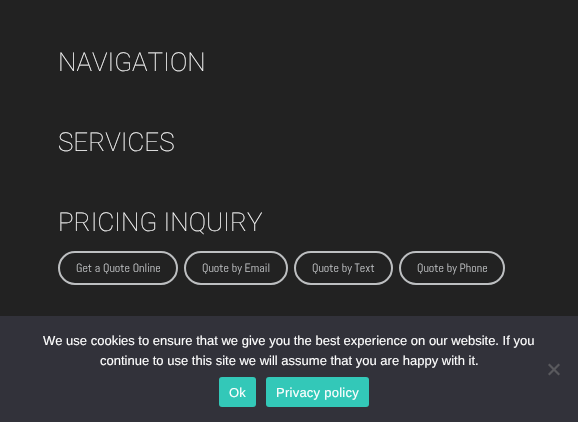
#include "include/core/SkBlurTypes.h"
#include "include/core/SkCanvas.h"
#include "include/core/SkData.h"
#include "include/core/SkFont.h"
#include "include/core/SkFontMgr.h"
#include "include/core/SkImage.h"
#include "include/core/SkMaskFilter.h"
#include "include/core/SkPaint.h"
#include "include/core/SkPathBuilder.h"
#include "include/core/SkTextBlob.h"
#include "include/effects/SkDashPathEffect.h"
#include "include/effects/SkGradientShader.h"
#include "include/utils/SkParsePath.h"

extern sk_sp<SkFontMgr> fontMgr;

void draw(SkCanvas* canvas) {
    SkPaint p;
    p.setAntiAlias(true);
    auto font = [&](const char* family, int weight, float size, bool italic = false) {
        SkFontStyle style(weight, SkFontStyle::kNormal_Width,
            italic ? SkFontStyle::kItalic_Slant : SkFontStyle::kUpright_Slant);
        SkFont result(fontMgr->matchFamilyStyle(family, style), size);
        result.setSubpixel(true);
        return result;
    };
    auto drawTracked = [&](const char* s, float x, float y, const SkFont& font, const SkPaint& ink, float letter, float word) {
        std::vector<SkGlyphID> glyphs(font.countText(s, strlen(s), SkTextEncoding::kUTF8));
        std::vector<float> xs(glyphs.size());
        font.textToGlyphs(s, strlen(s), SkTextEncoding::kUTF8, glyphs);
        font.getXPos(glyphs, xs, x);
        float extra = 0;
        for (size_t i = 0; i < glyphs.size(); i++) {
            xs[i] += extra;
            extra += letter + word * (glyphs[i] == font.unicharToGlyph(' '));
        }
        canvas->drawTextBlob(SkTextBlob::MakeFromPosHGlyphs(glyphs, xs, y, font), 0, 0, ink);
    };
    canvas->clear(0xFF222222);
    auto font1 = font("Roboto", 100, 26);
    p.setColor(0xFFFFFFFF);
    {
        const struct { const char* s; float x, y; } items[] = {
            {"NAVIGATION", 58, 71},
            {"SERVICES", 58, 151},
            {"PRICING INQUIRY", 58, 231},
        };
        for (auto [s, x, y] : items) {
            canvas->drawString(s, x, y, font1, p);
        }
    }
    p.setStyle(SkPaint::kStroke_Style);
    p.setStrokeWidth(2);
    p.setColor(0xFFBDBFC1);
    canvas->drawRoundRect(SkRect::MakeLTRB(59, 252, 177, 284), 16, 16, p);
    auto font2 = font("Abel", 400, 12);
    p.setStyle(SkPaint::kFill_Style);
    canvas->drawString("Get a Quote Online", 76, 272, font2, p);
    p.setStyle(SkPaint::kStroke_Style);
    canvas->drawRoundRect(SkRect::MakeLTRB(185, 252, 287, 284), 16, 16, p);
    p.setStyle(SkPaint::kFill_Style);
    canvas->drawString("Quote by Email", 202, 272, font2, p);
    p.setStyle(SkPaint::kStroke_Style);
    canvas->drawRoundRect(SkRect::MakeLTRB(295, 252, 392, 284), 16, 16, p);
    p.setStyle(SkPaint::kFill_Style);
    canvas->drawString("Quote by Text", 312, 272, font2, p);
    p.setStyle(SkPaint::kStroke_Style);
    canvas->drawRoundRect(SkRect::MakeLTRB(400, 252, 504, 284), 16, 16, p);
    p.setStyle(SkPaint::kFill_Style);
    canvas->drawString("Quote by Phone", 417, 272, font2, p);
    p.setColor(0xFF32323A);
    canvas->drawRect(SkRect::MakeLTRB(0, 316, 578, 422), p);
    auto font3 = font("Liberation Sans", 400, 13);
    p.setColor(0xFFFFFFFF);
    canvas->drawString("We use cookies to ensure that we give you the best experience on our website. If you", 43, 345, font3, p);
    canvas->drawString("continue to use this site we will assume that you are happy with it.", 100, 365, font3, p);
    p.setColor(0xFF59595D);
    canvas->drawPath(SkPathBuilder().moveTo(558.5f, 363.5f).lineTo(560, 365).lineTo(549.5f, 375.5f).lineTo(548, 374).close().detach(), p);
    canvas->drawPath(SkPathBuilder().moveTo(548, 365).lineTo(549.5f, 363.5f).lineTo(560, 374).lineTo(558.5f, 375.5f).close().detach(), p);
    p.setColor(0xFF33C8B8);
    canvas->drawRoundRect(SkRect::MakeLTRB(219, 377, 256, 407), 3, 3, p);
    p.setColor(0xFFFFFFFF);
    drawTracked("Ok", 229, 397, font3, p, 0.25f, 0);
    p.setColor(0xFF33C8B8);
    canvas->drawRoundRect(SkRect::MakeLTRB(266, 377, 369, 407), 3, 3, p);
    p.setColor(0xFFFFFFFF);
    drawTracked("Privacy policy", 276, 397, font3, p, 0.25f, 0);
}
